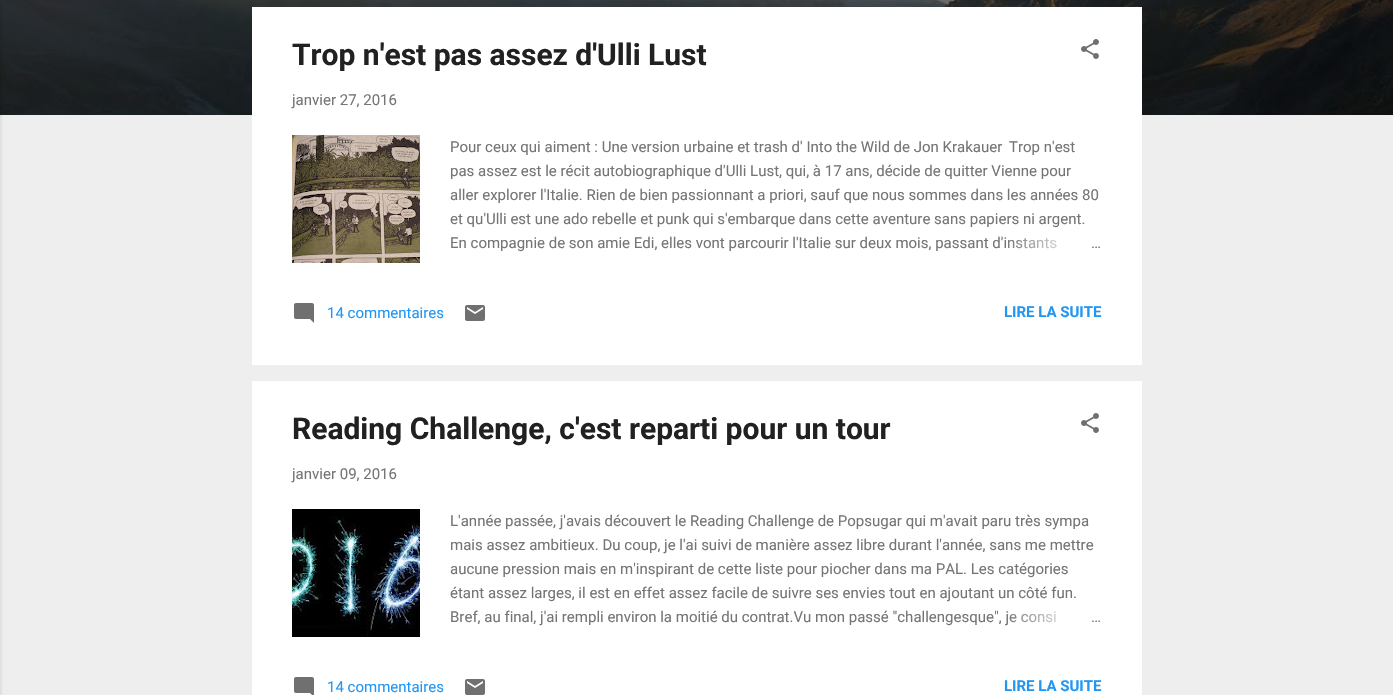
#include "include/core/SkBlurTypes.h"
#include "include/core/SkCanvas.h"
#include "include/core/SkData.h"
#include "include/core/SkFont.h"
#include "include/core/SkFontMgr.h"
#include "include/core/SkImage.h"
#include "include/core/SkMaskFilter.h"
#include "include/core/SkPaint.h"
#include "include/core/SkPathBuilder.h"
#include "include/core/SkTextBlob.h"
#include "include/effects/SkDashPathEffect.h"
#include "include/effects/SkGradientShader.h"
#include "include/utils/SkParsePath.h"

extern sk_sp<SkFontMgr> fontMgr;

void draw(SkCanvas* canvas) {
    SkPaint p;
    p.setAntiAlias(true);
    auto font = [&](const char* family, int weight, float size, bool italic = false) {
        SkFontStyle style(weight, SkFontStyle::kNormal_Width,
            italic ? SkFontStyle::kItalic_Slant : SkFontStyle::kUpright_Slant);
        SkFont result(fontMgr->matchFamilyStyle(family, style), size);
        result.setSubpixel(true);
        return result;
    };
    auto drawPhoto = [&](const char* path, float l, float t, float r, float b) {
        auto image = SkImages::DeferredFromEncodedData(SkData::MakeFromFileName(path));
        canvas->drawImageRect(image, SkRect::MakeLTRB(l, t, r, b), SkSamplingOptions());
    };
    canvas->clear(0xFFEEEEEE);
    drawPhoto("media/1.png", 0, 0, 1393, 115);
    p.setColor(0x1A000000);
    p.setMaskFilter(SkMaskFilter::MakeBlur(kNormal_SkBlurStyle, 1.5f));
    canvas->drawRect(SkRect::MakeLTRB(-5, 1, 1, 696), p);
    p.setMaskFilter(nullptr);
    p.setColor(0xFFFFFFFF);
    canvas->drawRect(SkRect::MakeLTRB(252, 7, 1142, 365), p);
    auto font1 = font("Roboto", 700, 30);
    p.setColor(0xFF212121);
    canvas->drawString("Trop n'est pas assez d'Ulli Lust", 292, 65, font1, p);
    drawPhoto("media/2.png", 1081, 39, 1099, 59);
    auto font2 = font("Roboto", 400, 15);
    p.setColor(0xFF757575);
    canvas->drawString("janvier 27, 2016", 292, 105, font2, p);
    drawPhoto("media/3.png", 292, 135, 420, 263);
    {
        const struct { const char* s; float x, y; } items[] = {
            {"Pour ceux qui aiment : Une version urbaine et trash d' Into the Wild de Jon Krakauer", 450, 152},
            {"Trop n'est", 1009, 152},
            {"pas assez est le récit autobiographique d'Ulli Lust, qui, à 17 ans, décide de quitter Vienne pour", 450, 176},
            {"aller explorer l'Italie. Rien de bien passionnant a priori, sauf que nous sommes dans les années 80", 450, 200},
            {"et qu'Ulli est une ado rebelle et punk qui s'embarque dans cette aventure sans papiers ni argent.", 450, 224},
            {"En compagnie de son amie Edi, elles vont parcourir l'Italie sur deux mois, passant d'instants", 450, 248},
        };
        for (auto [s, x, y] : items) {
            canvas->drawString(s, x, y, font2, p);
        }
    }
    {
        const SkColor colors[] = {0xFFFFFFFF, 0xFFFFFFFF, 0x00FFFFFF};
        const float stops[] = {0, 0.2f, 1};
        const SkPoint ends[] = {{1102, 243}, {1006, 243}};
        p.setShader(SkGradientShader::MakeLinear(ends, colors, stops, 3, SkTileMode::kClamp));
        p.setAlpha(255);
    }
    canvas->drawRect(SkRect::MakeLTRB(1008, 238, 1056, 249), p);
    p.setShader(nullptr);
    p.setColor(0xFF757575);
    canvas->drawString("…", 1091, 248, font2, p);
    drawPhoto("media/4.png", 294, 303, 314, 323);
    p.setColor(0xFF2196F3);
    canvas->drawString("14 commentaires", 327, 318, font2, p);
    drawPhoto("media/5.png", 465, 305, 485, 321);
    auto font3 = font("Roboto", 700, 15);
    canvas->drawString("LIRE LA SUITE", 1004, 317, font3, p);
    p.setColor(0xFFFFFFFF);
    canvas->drawRect(SkRect::MakeLTRB(252, 381, 1142, 695), p);
    p.setColor(0xFF212121);
    canvas->drawString("Reading Challenge, c'est reparti pour un tour", 292, 439, font1, p);
    drawPhoto("media/2.png", 1081, 413, 1099, 433);
    p.setColor(0xFF757575);
    canvas->drawString("janvier 09, 2016", 292, 479, font2, p);
    drawPhoto("media/6.png", 292, 509, 420, 637);
    {
        const struct { const char* s; float x, y; } items[] = {
            {"L'année passée, j'avais découvert le Reading Challenge de Popsugar qui m'avait paru très sympa", 450, 526},
            {"mais assez ambitieux. Du coup, je l'ai suivi de manière assez libre durant l'année, sans me mettre", 450, 550},
            {"aucune pression mais en m'inspirant de cette liste pour piocher dans ma PAL. Les catégories", 450, 574},
            {"étant assez larges, il est en effet assez facile de suivre ses envies tout en ajoutant un côté fun.", 450, 598},
            {"Bref, au final, j'ai rempli environ la moitié du contrat.Vu mon passé \"challengesque\", je consi", 450, 622},
        };
        for (auto [s, x, y] : items) {
            canvas->drawString(s, x, y, font2, p);
        }
    }
    {
        const SkColor colors[] = {0xFFFFFFFF, 0xFFFFFFFF, 0x00FFFFFF};
        const float stops[] = {0, 0.2f, 1};
        const SkPoint ends[] = {{1102, 617}, {1006, 617}};
        p.setShader(SkGradientShader::MakeLinear(ends, colors, stops, 3, SkTileMode::kClamp));
        p.setAlpha(255);
    }
    canvas->drawRect(SkRect::MakeLTRB(1009, 611, 1056, 623), p);
    p.setShader(nullptr);
    p.setColor(0xFF757575);
    canvas->drawString("…", 1091, 622, font2, p);
    drawPhoto("media/7.png", 294, 677, 314, 695);
    p.setColor(0xFF2196F3);
    canvas->drawString("14 commentaires", 327, 692, font2, p);
    drawPhoto("media/5.png", 465, 679, 485, 695);
    canvas->drawString("LIRE LA SUITE", 1004, 691, font3, p);
}
